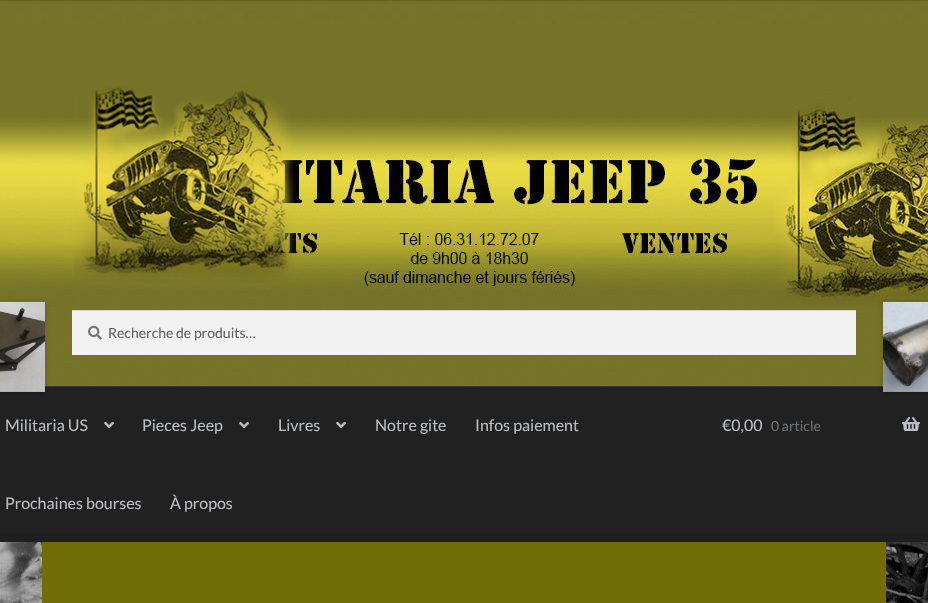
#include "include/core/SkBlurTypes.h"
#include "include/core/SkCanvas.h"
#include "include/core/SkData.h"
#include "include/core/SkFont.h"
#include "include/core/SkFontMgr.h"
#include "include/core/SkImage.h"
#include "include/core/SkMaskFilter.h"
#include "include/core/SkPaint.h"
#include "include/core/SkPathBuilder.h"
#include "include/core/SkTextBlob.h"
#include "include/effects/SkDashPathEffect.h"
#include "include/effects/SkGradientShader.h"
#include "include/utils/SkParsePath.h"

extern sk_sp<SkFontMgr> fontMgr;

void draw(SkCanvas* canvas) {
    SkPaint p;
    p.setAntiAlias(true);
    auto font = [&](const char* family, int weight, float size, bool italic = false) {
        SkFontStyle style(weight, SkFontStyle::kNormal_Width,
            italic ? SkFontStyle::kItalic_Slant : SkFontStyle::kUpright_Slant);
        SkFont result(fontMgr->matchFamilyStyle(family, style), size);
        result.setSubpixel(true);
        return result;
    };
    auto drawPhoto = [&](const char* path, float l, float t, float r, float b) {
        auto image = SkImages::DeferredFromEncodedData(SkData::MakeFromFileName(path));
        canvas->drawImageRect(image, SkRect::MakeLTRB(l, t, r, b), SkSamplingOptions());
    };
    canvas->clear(0xFFFFFFFF);
    drawPhoto("media/1.png", 0, 542, 928, 603);
    drawPhoto("media/4.png", 0, 0, 928, 386);
    p.setColor(0x33000000);
    p.setMaskFilter(SkMaskFilter::MakeBlur(kNormal_SkBlurStyle, 1));
    canvas->drawRect(SkRect::MakeLTRB(0, -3, 928, 1), p);
    p.setMaskFilter(nullptr);
    p.setColor(0xFF706E04);
    canvas->drawRect(SkRect::MakeLTRB(42, 542, 886, 603), p);
    p.setColor(0xFF212121);
    canvas->drawRect(SkRect::MakeLTRB(0, 387, 928, 534), p);
    p.setColor(0xFF373737);
    canvas->drawPath(SkPathBuilder().moveTo(-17, 387).lineTo(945, 387).cubicTo(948, 387, 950, 389, 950, 392).cubicTo(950, 389, 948, 386, 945, 386).lineTo(-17, 386).cubicTo(-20, 386, -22, 389, -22, 392).cubicTo(-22, 389, -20, 387, -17, 387).close().detach(), p);
    p.setColor(0x33000000);
    p.setMaskFilter(SkMaskFilter::MakeBlur(kNormal_SkBlurStyle, 2.5f));
    canvas->drawRect(SkRect::MakeLTRB(-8, 302, 45, 392), p);
    p.setMaskFilter(nullptr);
    drawPhoto("media/2.png", 0, 301, 45, 392);
    p.setMaskFilter(SkMaskFilter::MakeBlur(kNormal_SkBlurStyle, 2.5f));
    canvas->drawRect(SkRect::MakeLTRB(883, 302, 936, 392), p);
    p.setMaskFilter(nullptr);
    drawPhoto("media/3.png", 883, 301, 928, 392);
    drawPhoto("media/5.png", 74, 86, 296, 283);
    p.setColor(0xFFF2F2F2);
    canvas->drawRect(SkRect::MakeLTRB(72, 311, 856, 355), p);
    drawPhoto("media/6.png", 88, 325, 102, 340);
    p.setColor(0xFFD4D4D4);
    canvas->drawRect(SkRect::MakeLTRB(72, 310, 856, 311), p);
    auto font1 = font("Lato", 400, 14);
    p.setColor(0xFF616161);
    canvas->drawString("Recherche de produits…", 108, 338, font1, p);
    p.setColor(0xFF1F1F1F);
    canvas->drawRect(SkRect::MakeLTRB(0, 534, 928, 542), p);
    auto font2 = font("Lato", 400, 16);
    p.setColor(0xFFBBBDC0);
    canvas->drawString("Militaria US", 5, 431, font2, p);
    drawPhoto("media/7.png", 104, 421, 114, 429);
    canvas->drawString("Pieces Jeep", 142, 431, font2, p);
    drawPhoto("media/7.png", 239, 421, 249, 429);
    canvas->drawString("Livres", 278, 431, font2, p);
    drawPhoto("media/7.png", 336, 421, 346, 429);
    {
        const struct { const char* s; float x, y; } items[] = {
            {"Notre gite", 375, 431},
            {"Infos paiement", 475, 431},
            {"Prochaines bourses", 5, 509},
            {"À propos", 170, 509},
            {"€0,00", 722, 431},
        };
        for (auto [s, x, y] : items) {
            canvas->drawString(s, x, y, font2, p);
        }
    }
    p.setColor(0xFF6E6F71);
    canvas->drawString("0 article", 771, 431, font1, p);
    drawPhoto("media/8.png", 902, 417, 920, 431);
}
